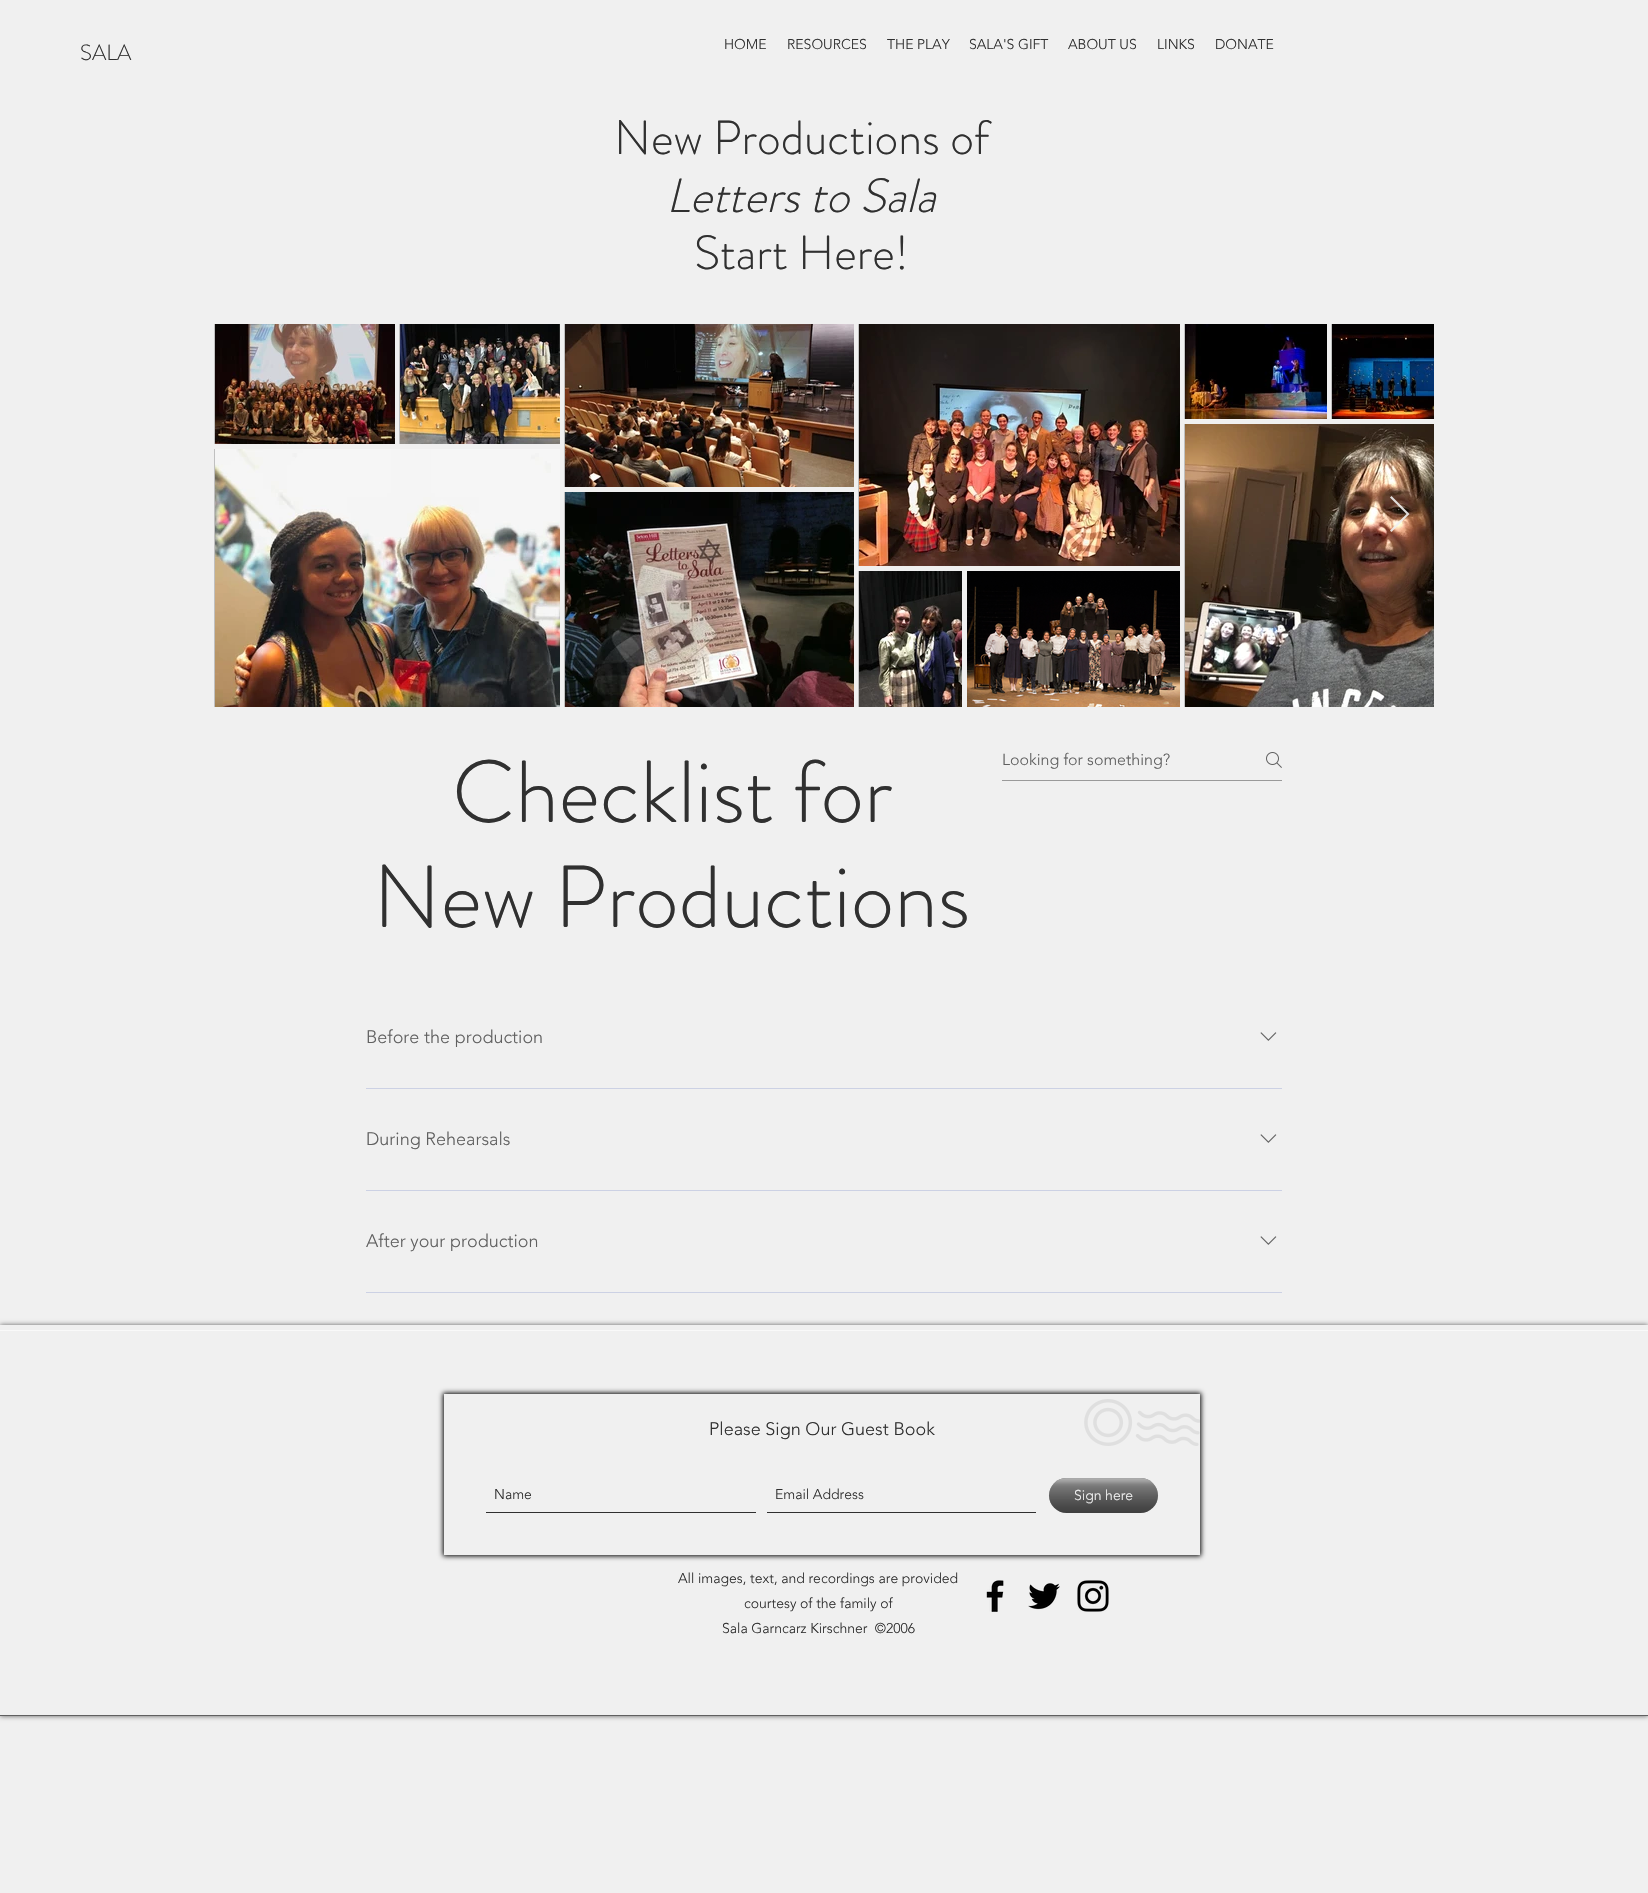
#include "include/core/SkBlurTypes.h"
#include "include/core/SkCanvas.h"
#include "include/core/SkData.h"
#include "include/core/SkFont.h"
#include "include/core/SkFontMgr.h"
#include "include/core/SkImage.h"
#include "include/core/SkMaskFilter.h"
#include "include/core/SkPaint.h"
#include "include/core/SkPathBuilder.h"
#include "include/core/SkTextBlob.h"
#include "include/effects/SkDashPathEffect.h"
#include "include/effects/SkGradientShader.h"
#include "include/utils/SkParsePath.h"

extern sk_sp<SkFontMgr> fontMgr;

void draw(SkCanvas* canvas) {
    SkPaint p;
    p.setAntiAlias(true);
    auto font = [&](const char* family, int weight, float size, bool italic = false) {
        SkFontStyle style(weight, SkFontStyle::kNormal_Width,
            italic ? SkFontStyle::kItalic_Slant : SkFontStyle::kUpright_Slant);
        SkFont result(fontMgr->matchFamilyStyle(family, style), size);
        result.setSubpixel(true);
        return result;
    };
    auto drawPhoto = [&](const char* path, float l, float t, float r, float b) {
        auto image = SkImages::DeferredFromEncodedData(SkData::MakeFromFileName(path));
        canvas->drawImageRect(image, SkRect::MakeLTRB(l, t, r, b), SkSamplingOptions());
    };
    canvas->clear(0xFFF0F0F0);
    auto font1 = font("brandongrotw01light", 300, 22);
    p.setColor(0xFF303030);
    canvas->drawString("SALA", 80, 60, font1, p);
    auto font2 = font("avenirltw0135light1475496", 300, 14);
    {
        const struct { const char* s; float x, y; } items[] = {
            {"HOME", 724, 49},
            {"RESOURCES", 787, 49},
            {"THE PLAY", 887, 49},
            {"SALA'S GIFT", 969, 49},
            {"ABOUT US", 1068, 49},
            {"LINKS", 1157, 49},
            {"DONATE", 1215, 49},
        };
        for (auto [s, x, y] : items) {
            canvas->drawString(s, x, y, font2, p);
        }
    }
    auto font3 = font("brandongrotw01light", 300, 48);
    canvas->drawString("New Productions of", 614, 154, font3, p);
    auto font4 = font("brandongrotw01light", 300, 48, true);
    canvas->drawString("Letters to Sala", 666, 212, font4, p);
    canvas->drawString("Start Here!", 694, 269, font3, p);
    p.setColor(0xFFC0C0C0);
    canvas->drawRect(SkRect::MakeLTRB(214, 324, 215, 444), p);
    drawPhoto("media/1.png", 215, 324, 395, 444);
    canvas->drawRect(SkRect::MakeLTRB(399, 324, 400, 444), p);
    drawPhoto("media/2.png", 400, 324, 560, 444);
    canvas->drawRect(SkRect::MakeLTRB(214, 449, 215, 707), p);
    drawPhoto("media/3.png", 215, 449, 560, 707);
    canvas->drawRect(SkRect::MakeLTRB(564, 324, 565, 487), p);
    drawPhoto("media/4.png", 565, 324, 854, 487);
    canvas->drawRect(SkRect::MakeLTRB(564, 492, 565, 707), p);
    drawPhoto("media/5.png", 565, 492, 854, 707);
    canvas->drawRect(SkRect::MakeLTRB(858, 324, 859, 566), p);
    drawPhoto("media/6.png", 859, 324, 1180, 566);
    canvas->drawRect(SkRect::MakeLTRB(858, 571, 859, 707), p);
    drawPhoto("media/7.png", 859, 571, 962, 707);
    drawPhoto("media/8.png", 967, 571, 1180, 707);
    canvas->drawRect(SkRect::MakeLTRB(1184, 324, 1185, 419), p);
    drawPhoto("media/9.png", 1185, 324, 1327, 419);
    canvas->drawRect(SkRect::MakeLTRB(1331, 324, 1332, 419), p);
    drawPhoto("media/10.png", 1332, 324, 1434, 419);
    canvas->drawRect(SkRect::MakeLTRB(1184, 424, 1185, 707), p);
    drawPhoto("media/11.png", 1185, 424, 1434, 707);
    p.setColor(0xE6F0F0F0);
    canvas->drawPath(SkPathBuilder().moveTo(1390, 497.5f).lineTo(1391.5f, 496).lineTo(1409.5f, 514).lineTo(1391.5f, 532).lineTo(1390, 530.5f).lineTo(1406.5f, 514).close().detach(), p);
    auto font5 = font("brandongrotw01light", 300, 88);
    p.setColor(0xFF303030);
    canvas->drawString("Checklist for", 452, 822, font5, p);
    canvas->drawString("New Productions", 373, 927, font5, p);
    p.setColor(0xFF9A9A9A);
    canvas->drawRect(SkRect::MakeLTRB(1002, 780, 1282, 781), p);
    auto font6 = font("avenirltw0135light1475496", 300, 16);
    p.setColor(0xFF606060);
    canvas->drawString("Looking for something?", 1002, 765, font6, p);
    drawPhoto("media/12.png", 1266, 752, 1282, 768);
    auto font7 = font("avenirltw0135light1475496", 300, 18);
    canvas->drawString("Before the production", 366, 1043, font7, p);
    drawPhoto("media/13.png", 1260, 1032, 1277, 1041);
    p.setColor(0xFFCCD1E4);
    canvas->drawRect(SkRect::MakeLTRB(366, 1088, 1282, 1089), p);
    p.setColor(0xFF606060);
    canvas->drawString("During Rehearsals", 366, 1145, font7, p);
    drawPhoto("media/13.png", 1260, 1134, 1277, 1143);
    p.setColor(0xFFCCD1E4);
    canvas->drawRect(SkRect::MakeLTRB(366, 1190, 1282, 1191), p);
    p.setColor(0xFF606060);
    canvas->drawString("After your production", 366, 1247, font7, p);
    drawPhoto("media/13.png", 1260, 1236, 1277, 1245);
    p.setColor(0xFFCCD1E4);
    canvas->drawRect(SkRect::MakeLTRB(366, 1292, 1282, 1293), p);
    canvas->save();
    canvas->clipPath(SkPathBuilder(SkPathFillType::kEvenOdd).moveTo(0, 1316).lineTo(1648, 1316).lineTo(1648, 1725).lineTo(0, 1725).close().moveTo(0, 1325).lineTo(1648, 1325).lineTo(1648, 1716).lineTo(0, 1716).close().detach(), true);
    p.setColor(0x99000000);
    p.setMaskFilter(SkMaskFilter::MakeBlur(kNormal_SkBlurStyle, 2.5f));
    canvas->drawRect(SkRect::MakeLTRB(0, 1325, 1648, 1716), p);
    p.setMaskFilter(nullptr);
    canvas->restore();
    p.setColor(0xFF606060);
    canvas->drawRect(SkRect::MakeLTRB(0, 1715, 1648, 1716), p);
    p.setColor(0xFFF9F9F9);
    canvas->drawRect(SkRect::MakeLTRB(0, 1330, 1648, 1331), p);
    canvas->save();
    canvas->clipPath(SkPathBuilder(SkPathFillType::kEvenOdd).moveTo(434, 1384).lineTo(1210, 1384).lineTo(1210, 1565).lineTo(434, 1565).close().moveTo(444, 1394).lineTo(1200, 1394).lineTo(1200, 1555).lineTo(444, 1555).close().detach(), true);
    p.setColor(0xFF000000);
    p.setMaskFilter(SkMaskFilter::MakeBlur(kNormal_SkBlurStyle, 2.5f));
    canvas->drawRect(SkRect::MakeLTRB(443, 1393, 1201, 1556), p);
    p.setMaskFilter(nullptr);
    canvas->restore();
    p.setColor(0xFF303030);
    canvas->drawString("Please Sign Our Guest Book", 709, 1435, font7, p);
    drawPhoto("media/14.png", 1084, 1399, 1200, 1446);
    canvas->drawRect(SkRect::MakeLTRB(486, 1512, 756, 1513), p);
    canvas->drawString("Name", 494, 1499, font2, p);
    canvas->drawRect(SkRect::MakeLTRB(767, 1512, 1036, 1513), p);
    canvas->drawString("Email Address", 775, 1499, font2, p);
    canvas->drawRoundRect(SkRect::MakeLTRB(1049, 1478, 1158, 1513), 17.5f, 17.5f, p);
    drawPhoto("media/15.png", 1049, 1478, 1158, 1513);
    p.setColor(0xFFF0F0F0);
    canvas->drawString("Sign here", 1074, 1500, font2, p);
    p.setColor(0xFF303030);
    {
        const struct { const char* s; float x, y; } items[] = {
            {"All images, text, and recordings are provided", 678, 1583},
            {"courtesy of the family of", 744, 1608},
            {"Sala Garncarz Kirschner  ©2006", 722, 1633},
        };
        for (auto [s, x, y] : items) {
            canvas->drawString(s, x, y, font2, p);
        }
    }
    drawPhoto("media/16.png", 986, 1580, 1004, 1612);
    drawPhoto("media/17.png", 1028, 1583, 1060, 1610);
    drawPhoto("media/18.png", 1077, 1580, 1109, 1612);
}
